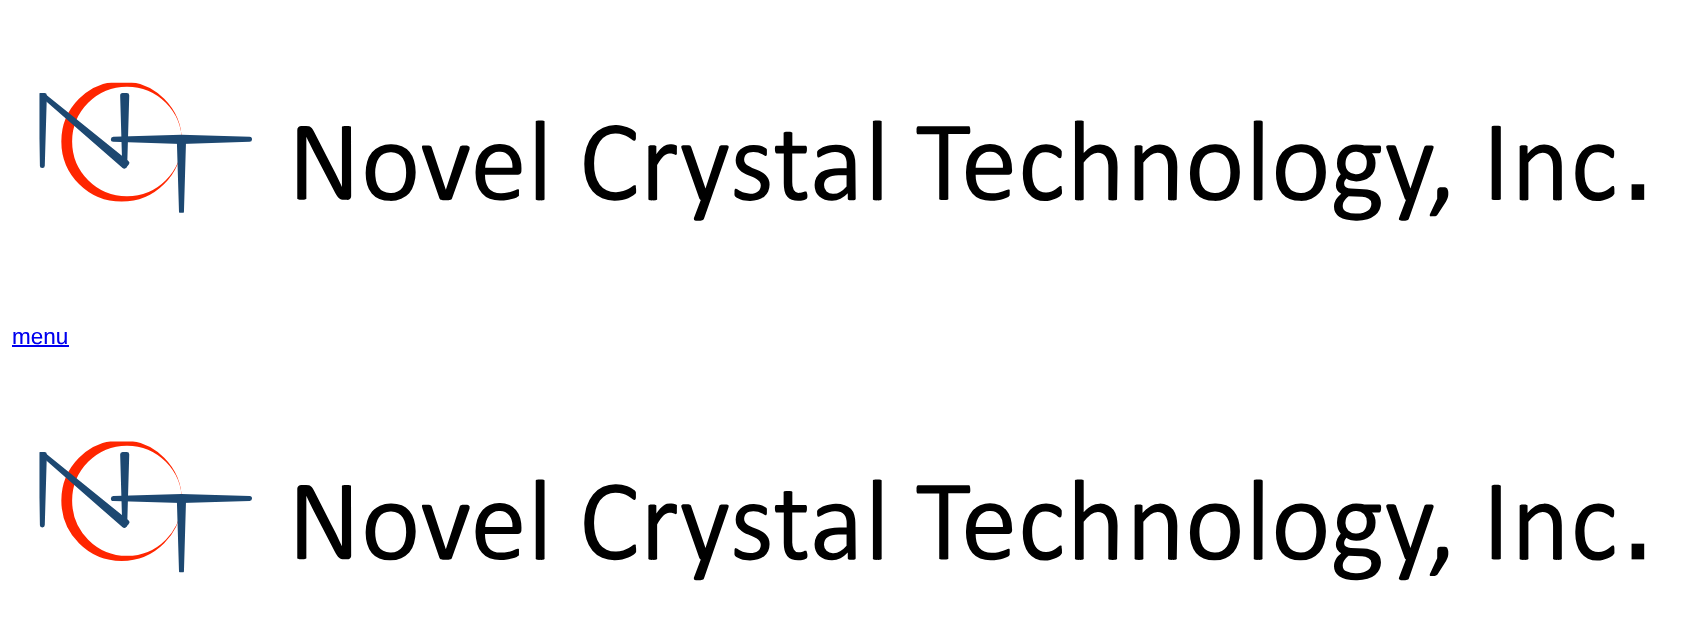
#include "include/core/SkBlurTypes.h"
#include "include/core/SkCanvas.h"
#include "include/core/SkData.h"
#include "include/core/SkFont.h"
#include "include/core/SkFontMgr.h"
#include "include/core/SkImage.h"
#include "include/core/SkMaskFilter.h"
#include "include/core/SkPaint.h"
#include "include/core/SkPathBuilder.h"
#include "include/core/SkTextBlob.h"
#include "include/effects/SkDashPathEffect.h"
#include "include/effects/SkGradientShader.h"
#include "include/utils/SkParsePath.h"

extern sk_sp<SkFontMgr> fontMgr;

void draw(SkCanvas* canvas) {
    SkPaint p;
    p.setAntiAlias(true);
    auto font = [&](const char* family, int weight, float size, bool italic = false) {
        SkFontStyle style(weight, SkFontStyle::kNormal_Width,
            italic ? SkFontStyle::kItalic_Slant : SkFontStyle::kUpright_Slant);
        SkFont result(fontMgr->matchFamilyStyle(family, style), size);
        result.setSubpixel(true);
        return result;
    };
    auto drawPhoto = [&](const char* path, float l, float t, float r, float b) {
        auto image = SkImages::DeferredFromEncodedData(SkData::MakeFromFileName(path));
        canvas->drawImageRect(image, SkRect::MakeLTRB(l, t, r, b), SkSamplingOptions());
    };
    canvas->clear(0xFFFFFFFF);
    drawPhoto("media/1.png", 39, 82, 1645, 221);
    auto font1 = font("Liberation Sans", 400, 22.5f);
    p.setColor(0xFF0000EE);
    canvas->drawString("menu", 12, 344, font1, p);
    canvas->drawRect(SkRect::MakeLTRB(12, 345, 69, 347), p);
    drawPhoto("media/2.png", 39, 441, 1645, 581);
}
